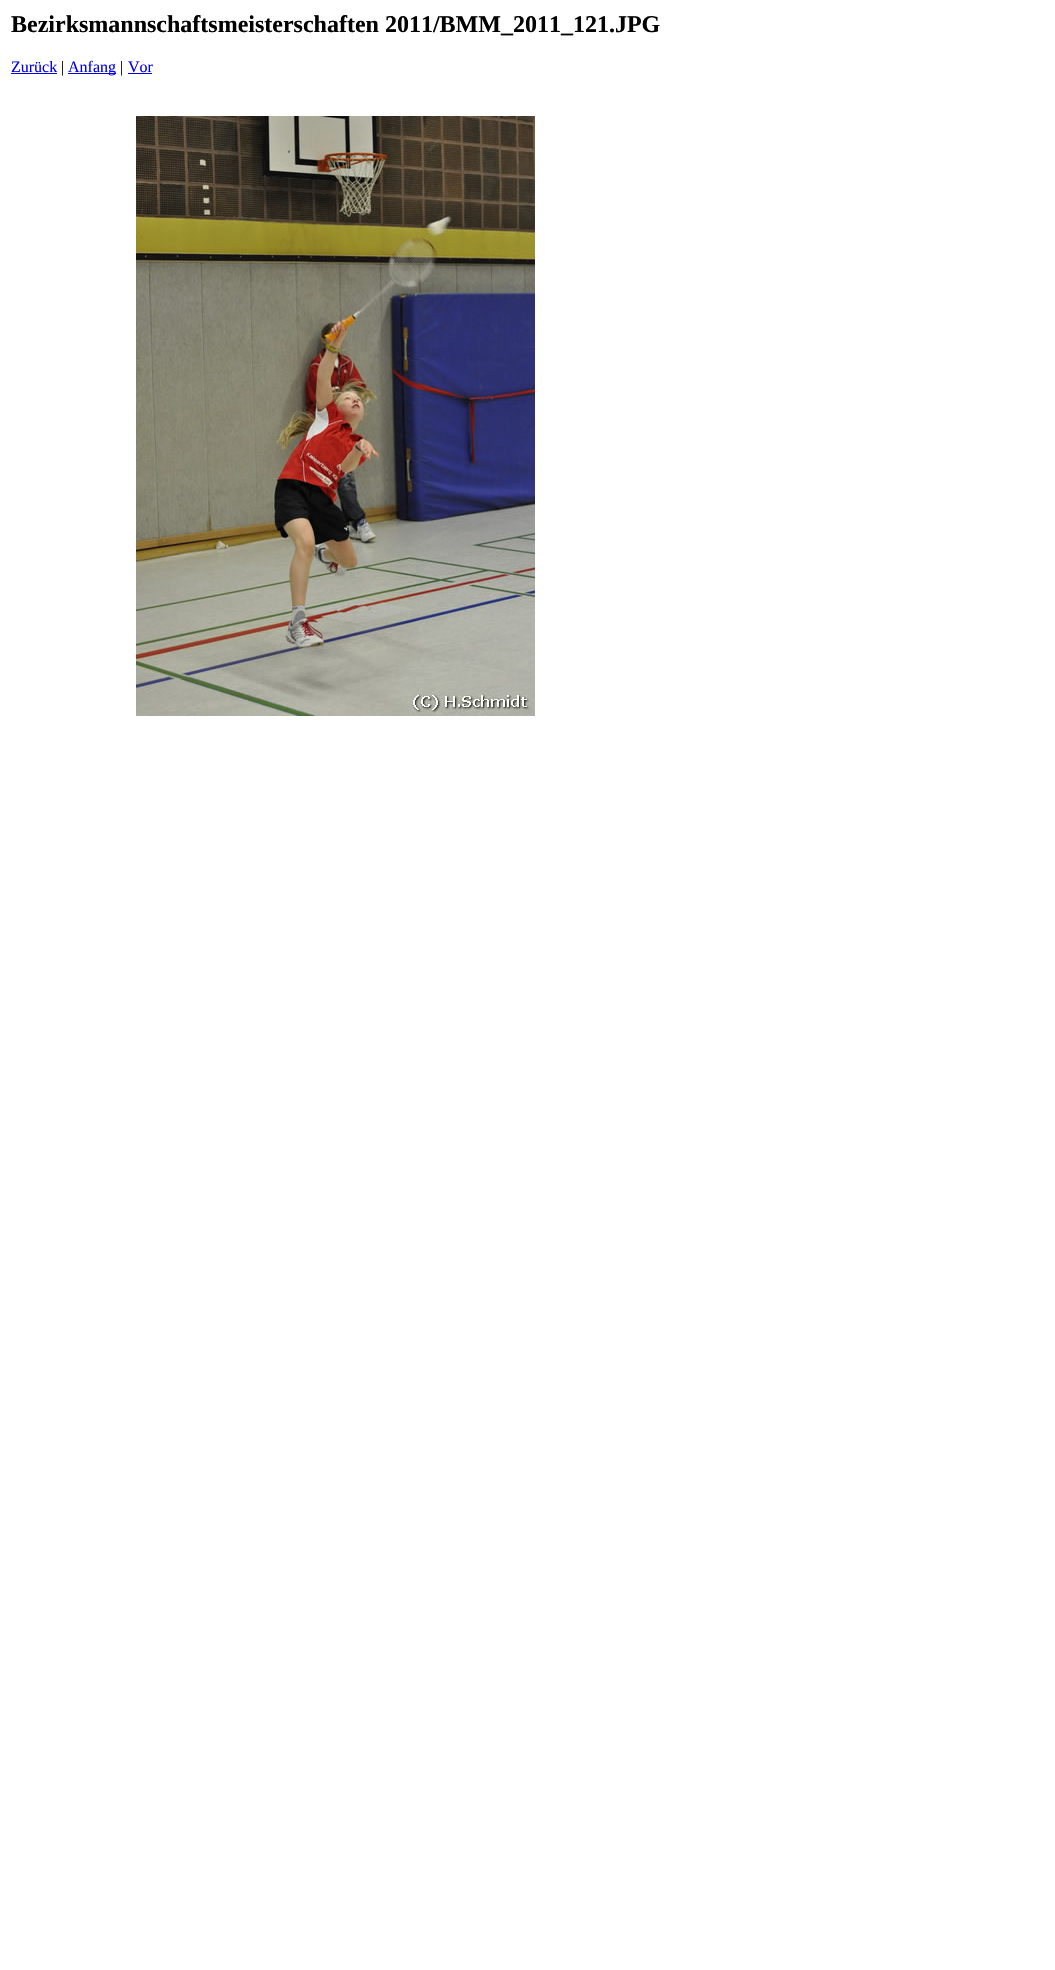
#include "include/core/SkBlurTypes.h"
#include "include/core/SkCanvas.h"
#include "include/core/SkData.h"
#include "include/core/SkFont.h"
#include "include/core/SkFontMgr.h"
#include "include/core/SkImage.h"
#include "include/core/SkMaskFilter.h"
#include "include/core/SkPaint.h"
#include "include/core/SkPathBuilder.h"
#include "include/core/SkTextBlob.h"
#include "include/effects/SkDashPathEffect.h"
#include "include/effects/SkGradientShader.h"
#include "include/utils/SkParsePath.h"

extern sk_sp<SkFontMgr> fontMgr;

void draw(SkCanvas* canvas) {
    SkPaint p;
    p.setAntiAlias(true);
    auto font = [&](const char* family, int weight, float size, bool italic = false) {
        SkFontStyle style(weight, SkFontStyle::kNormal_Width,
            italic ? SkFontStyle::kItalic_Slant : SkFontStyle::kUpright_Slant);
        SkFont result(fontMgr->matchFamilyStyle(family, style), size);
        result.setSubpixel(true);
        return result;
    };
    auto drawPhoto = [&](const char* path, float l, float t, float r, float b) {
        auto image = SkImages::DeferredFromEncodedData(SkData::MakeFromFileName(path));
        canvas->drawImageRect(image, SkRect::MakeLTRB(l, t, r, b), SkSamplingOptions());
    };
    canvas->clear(0xFFFFFFFF);
    auto font1 = font("Liberation Serif", 700, 24);
    p.setColor(0xFF000000);
    canvas->drawString("Bezirksmannschaftsmeisterschaften 2011/BMM_2011_121.JPG", 11, 32, font1, p);
    auto font2 = font("Liberation Serif", 400, 16);
    p.setColor(0xFF0000EE);
    canvas->drawString("Zurück", 11, 72, font2, p);
    canvas->drawRect(SkRect::MakeLTRB(11, 73, 57, 74), p);
    p.setColor(0xFF000000);
    canvas->drawString("|", 61, 72, font2, p);
    p.setColor(0xFF0000EE);
    canvas->drawRect(SkRect::MakeLTRB(68, 73, 116, 74), p);
    canvas->drawString("Anfang", 68, 72, font2, p);
    p.setColor(0xFF000000);
    canvas->drawString("|", 120, 72, font2, p);
    p.setColor(0xFF0000EE);
    canvas->drawString("Vor", 128, 72, font2, p);
    canvas->drawRect(SkRect::MakeLTRB(128, 73, 152, 74), p);
    drawPhoto("media/1.png", 136, 116, 535, 716);
}
